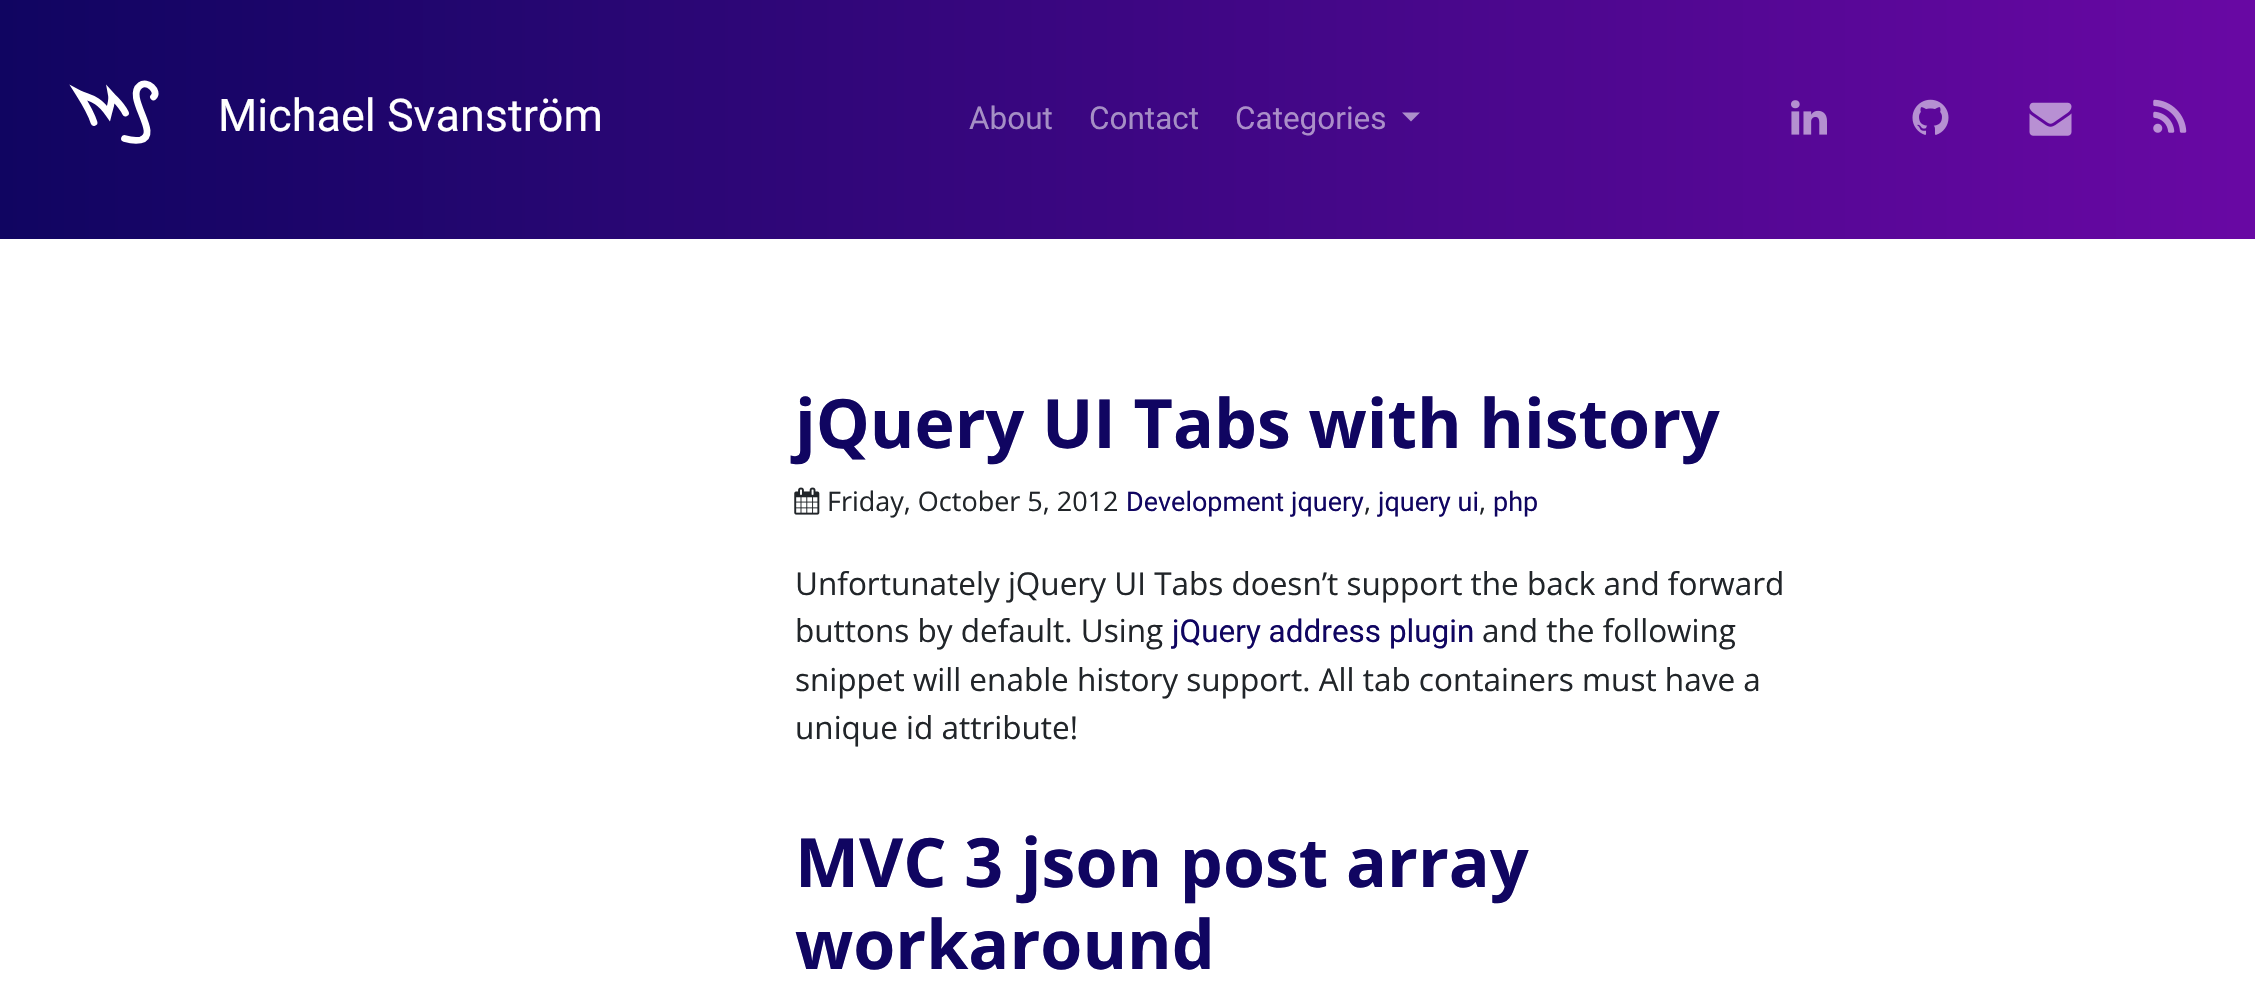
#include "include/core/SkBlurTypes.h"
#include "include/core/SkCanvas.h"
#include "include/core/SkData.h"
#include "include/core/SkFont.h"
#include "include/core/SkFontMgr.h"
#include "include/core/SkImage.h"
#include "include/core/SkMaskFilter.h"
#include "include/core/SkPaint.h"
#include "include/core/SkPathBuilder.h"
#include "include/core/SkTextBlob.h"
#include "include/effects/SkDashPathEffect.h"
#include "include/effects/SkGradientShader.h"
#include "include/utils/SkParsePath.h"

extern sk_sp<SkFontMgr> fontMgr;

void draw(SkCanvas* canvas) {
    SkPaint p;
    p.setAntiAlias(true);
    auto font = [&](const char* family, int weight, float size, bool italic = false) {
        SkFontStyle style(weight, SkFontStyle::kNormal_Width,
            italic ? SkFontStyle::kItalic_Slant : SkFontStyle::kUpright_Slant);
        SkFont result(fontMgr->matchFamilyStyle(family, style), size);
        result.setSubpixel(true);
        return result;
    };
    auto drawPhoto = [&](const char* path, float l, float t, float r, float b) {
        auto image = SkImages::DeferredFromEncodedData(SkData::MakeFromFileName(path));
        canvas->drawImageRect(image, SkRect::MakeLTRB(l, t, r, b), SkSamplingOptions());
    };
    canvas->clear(0xFFFFFFFF);
    {
        const SkColor colors[] = {0xFF100561, 0xFF9509C5, 0xFF85E1BE};
        const float stops[] = {0, 0.5f, 1};
        const SkPoint ends[] = {{0, 358}, {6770, 358}};
        p.setShader(SkGradientShader::MakeLinear(ends, colors, stops, 3, SkTileMode::kClamp));
        p.setAlpha(255);
    }
    canvas->drawRect(SkRect::MakeLTRB(0, 0, 2255, 239), p);
    p.setStyle(SkPaint::kStroke_Style);
    p.setStrokeWidth(6.8f);
    p.setStrokeCap(SkPaint::kRound_Cap);
    p.setShader(nullptr);
    p.setColor(0xFFFFFFFF);
    canvas->drawPath(SkPathBuilder().moveTo(94, 122.5f).cubicTo(91, 113, 85, 103, 79, 93.5f).cubicTo(88.5f, 98.5f, 97, 97, 108.5f, 113.5f).cubicTo(110, 107.5f, 112.5f, 101, 111.5f, 95.5f).cubicTo(117.5f, 102, 121.5f, 105, 125.5f, 113).detach(), p);
    canvas->drawPath(SkPathBuilder().moveTo(124.5f, 138.5f).cubicTo(129.5f, 140, 135.5f, 141, 140.5f, 140).cubicTo(161.5f, 135, 124.5f, 97, 140, 85.5f).cubicTo(147.5f, 79.5f, 159.5f, 91.5f, 153.5f, 97).detach(), p);
    auto font1 = font("Roboto", 400, 45);
    p.setStyle(SkPaint::kFill_Style);
    canvas->drawString("Michael Svanström", 218, 131, font1, p);
    auto font2 = font("Roboto", 400, 31.5f);
    p.setColor(0xFFA58FC5);
    canvas->drawString("About", 969, 129, font2, p);
    canvas->drawString("Contact", 1089, 129, font2, p);
    p.setColor(0xFFAB8FC9);
    canvas->drawString("Categories", 1235, 129, font2, p);
    p.setColor(0xFFAC8FCB);
    canvas->drawPath(SkPathBuilder().moveTo(1402, 112.5f).lineTo(1420, 112.5f).lineTo(1411, 121.5f).close().detach(), p);
    drawPhoto("media/1.png", 1791, 100, 1827, 135);
    drawPhoto("media/2.png", 1912, 99, 1949, 135);
    drawPhoto("media/3.png", 2029, 102, 2072, 136);
    drawPhoto("media/4.png", 2153, 99, 2187, 133);
    auto font3 = font("Open Sans", 700, 68);
    p.setColor(0xFF100561);
    canvas->drawString("jQuery UI Tabs with history", 795, 448, font3, p);
    drawPhoto("media/5.png", 794, 487, 820, 515);
    auto font4 = font("Open Sans", 400, 27);
    p.setColor(0xFF212529);
    canvas->drawString("Friday, October 5, 2012", 827, 511, font4, p);
    auto font5 = font("Roboto", 400, 27);
    p.setColor(0xFF100561);
    canvas->drawString("Development", 1126, 511, font5, p);
    canvas->drawString("jquery", 1291, 511, font5, p);
    p.setColor(0xFF212529);
    canvas->drawString(",", 1364, 511, font4, p);
    p.setColor(0xFF100561);
    canvas->drawString("jquery ui", 1378, 511, font5, p);
    p.setColor(0xFF212529);
    canvas->drawString(",", 1479, 511, font4, p);
    p.setColor(0xFF100561);
    canvas->drawString("php", 1493, 511, font5, p);
    auto font6 = font("Open Sans", 400, 31.5f);
    p.setColor(0xFF212529);
    canvas->drawString("Unfortunately jQuery UI Tabs doesn’t support the back and forward", 795, 595, font6, p);
    canvas->drawString("buttons by default. Using", 795, 642, font6, p);
    p.setColor(0xFF100561);
    canvas->drawString("jQuery address plugin", 1172, 642, font2, p);
    p.setColor(0xFF212529);
    {
        const struct { const char* s; float x, y; } items[] = {
            {"and the following", 1482, 642},
            {"snippet will enable history support. All tab containers must have a", 795, 691},
            {"unique id attribute!", 795, 739},
        };
        for (auto [s, x, y] : items) {
            canvas->drawString(s, x, y, font6, p);
        }
    }
    p.setColor(0xFF100561);
    canvas->drawString("MVC 3 json post array", 795, 887, font3, p);
    canvas->drawString("workaround", 795, 969, font3, p);
}
